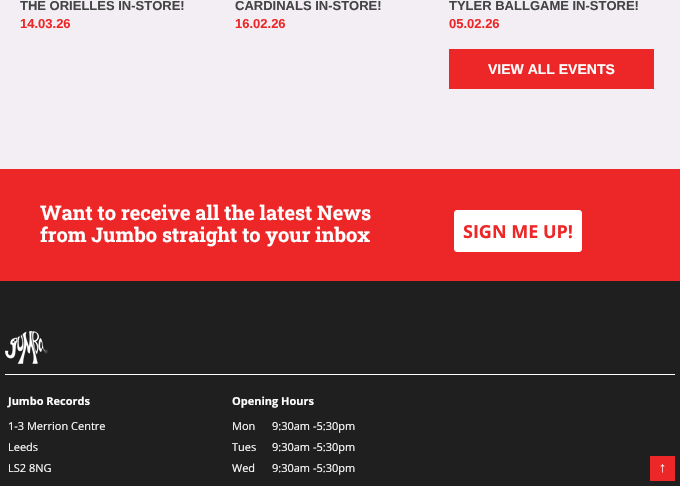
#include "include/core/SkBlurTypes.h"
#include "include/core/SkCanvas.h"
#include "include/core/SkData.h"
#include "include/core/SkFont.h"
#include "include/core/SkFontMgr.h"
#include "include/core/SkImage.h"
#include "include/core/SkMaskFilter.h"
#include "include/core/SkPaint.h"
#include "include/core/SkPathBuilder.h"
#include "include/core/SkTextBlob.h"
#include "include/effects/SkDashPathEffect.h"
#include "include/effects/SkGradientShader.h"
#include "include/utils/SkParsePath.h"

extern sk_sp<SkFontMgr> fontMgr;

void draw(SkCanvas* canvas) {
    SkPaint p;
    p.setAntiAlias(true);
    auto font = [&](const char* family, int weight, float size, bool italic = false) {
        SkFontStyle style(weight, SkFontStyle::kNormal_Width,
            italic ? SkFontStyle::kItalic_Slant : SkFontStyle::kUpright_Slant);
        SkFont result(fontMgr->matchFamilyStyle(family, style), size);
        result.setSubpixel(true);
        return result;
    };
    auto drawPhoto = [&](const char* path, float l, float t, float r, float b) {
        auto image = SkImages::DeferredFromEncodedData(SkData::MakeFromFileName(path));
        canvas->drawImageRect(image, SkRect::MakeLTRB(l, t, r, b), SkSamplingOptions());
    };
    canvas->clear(0xFFF2EEF3);
    auto font1 = font("Liberation Sans", 700, 13);
    p.setColor(0xFF444444);
    canvas->drawString("THE ORIELLES IN-STORE!", 20, 10, font1, p);
    p.setColor(0xFFED2728);
    canvas->drawString("14.03.26", 20, 28, font1, p);
    p.setColor(0xFF444444);
    canvas->drawString("CARDINALS IN-STORE!", 235, 10, font1, p);
    p.setColor(0xFFED2728);
    canvas->drawString("16.02.26", 235, 28, font1, p);
    p.setColor(0xFF444444);
    canvas->drawString("TYLER BALLGAME IN-STORE!", 449, 10, font1, p);
    p.setColor(0xFFED2728);
    canvas->drawString("05.02.26", 449, 28, font1, p);
    canvas->drawRect(SkRect::MakeLTRB(449, 49, 654, 89), p);
    auto font2 = font("Liberation Sans", 700, 14);
    p.setColor(0xFFFFFFFF);
    canvas->drawString("VIEW ALL EVENTS", 488, 74, font2, p);
    p.setColor(0xFFED2728);
    canvas->drawRect(SkRect::MakeLTRB(0, 169, 680, 281), p);
    auto font3 = font("Roboto Slab", 700, 20);
    p.setColor(0xFFFFFFFF);
    canvas->drawString("Want to receive all the latest News", 40, 220, font3, p);
    canvas->drawString("from Jumbo straight to your inbox", 40, 242, font3, p);
    canvas->drawRoundRect(SkRect::MakeLTRB(454.5f, 210.5f, 581.5f, 251.5f), 2.5f, 2.5f, p);
    p.setStyle(SkPaint::kStroke_Style);
    p.setStrokeWidth(1);
    canvas->drawRoundRect(SkRect::MakeLTRB(454.5f, 210.5f, 581.5f, 251.5f), 2.5f, 2.5f, p);
    auto font4 = font("Open Sans", 700, 18);
    p.setStyle(SkPaint::kFill_Style);
    p.setColor(0xFFED2728);
    canvas->drawString("SIGN ME UP!", 463, 238, font4, p);
    p.setColor(0xFF1F1F1F);
    canvas->drawRect(SkRect::MakeLTRB(0, 281, 680, 486), p);
    p.setColor(0xFFFFFFFF);
    canvas->drawRect(SkRect::MakeLTRB(5, 374, 675, 375), p);
    drawPhoto("media/1.png", 5, 331, 48, 364);
    auto font5 = font("Open Sans", 700, 11);
    canvas->drawString("Jumbo Records", 8, 405, font5, p);
    auto font6 = font("Open Sans", 400, 11);
    {
        const struct { const char* s; float x, y; } items[] = {
            {"1-3 Merrion Centre", 8, 430},
            {"Leeds", 8, 451},
            {"LS2 8NG", 8, 472},
        };
        for (auto [s, x, y] : items) {
            canvas->drawString(s, x, y, font6, p);
        }
    }
    canvas->drawString("Opening Hours", 232, 405, font5, p);
    {
        const struct { const char* s; float x, y; } items[] = {
            {"Mon", 232, 430},
            {"9:30am -5:30pm", 272, 430},
            {"Tues", 232, 451},
            {"9:30am -5:30pm", 272, 451},
            {"Wed", 232, 472},
            {"9:30am -5:30pm", 272, 472},
        };
        for (auto [s, x, y] : items) {
            canvas->drawString(s, x, y, font6, p);
        }
    }
    p.setColor(0xFFED2728);
    canvas->drawRect(SkRect::MakeLTRB(650, 456, 675, 481), p);
    auto font7 = font("Liberation Sans", 400, 14);
    p.setColor(0xFFFFFFFF);
    canvas->drawString("↑", 659, 472, font7, p);
}
